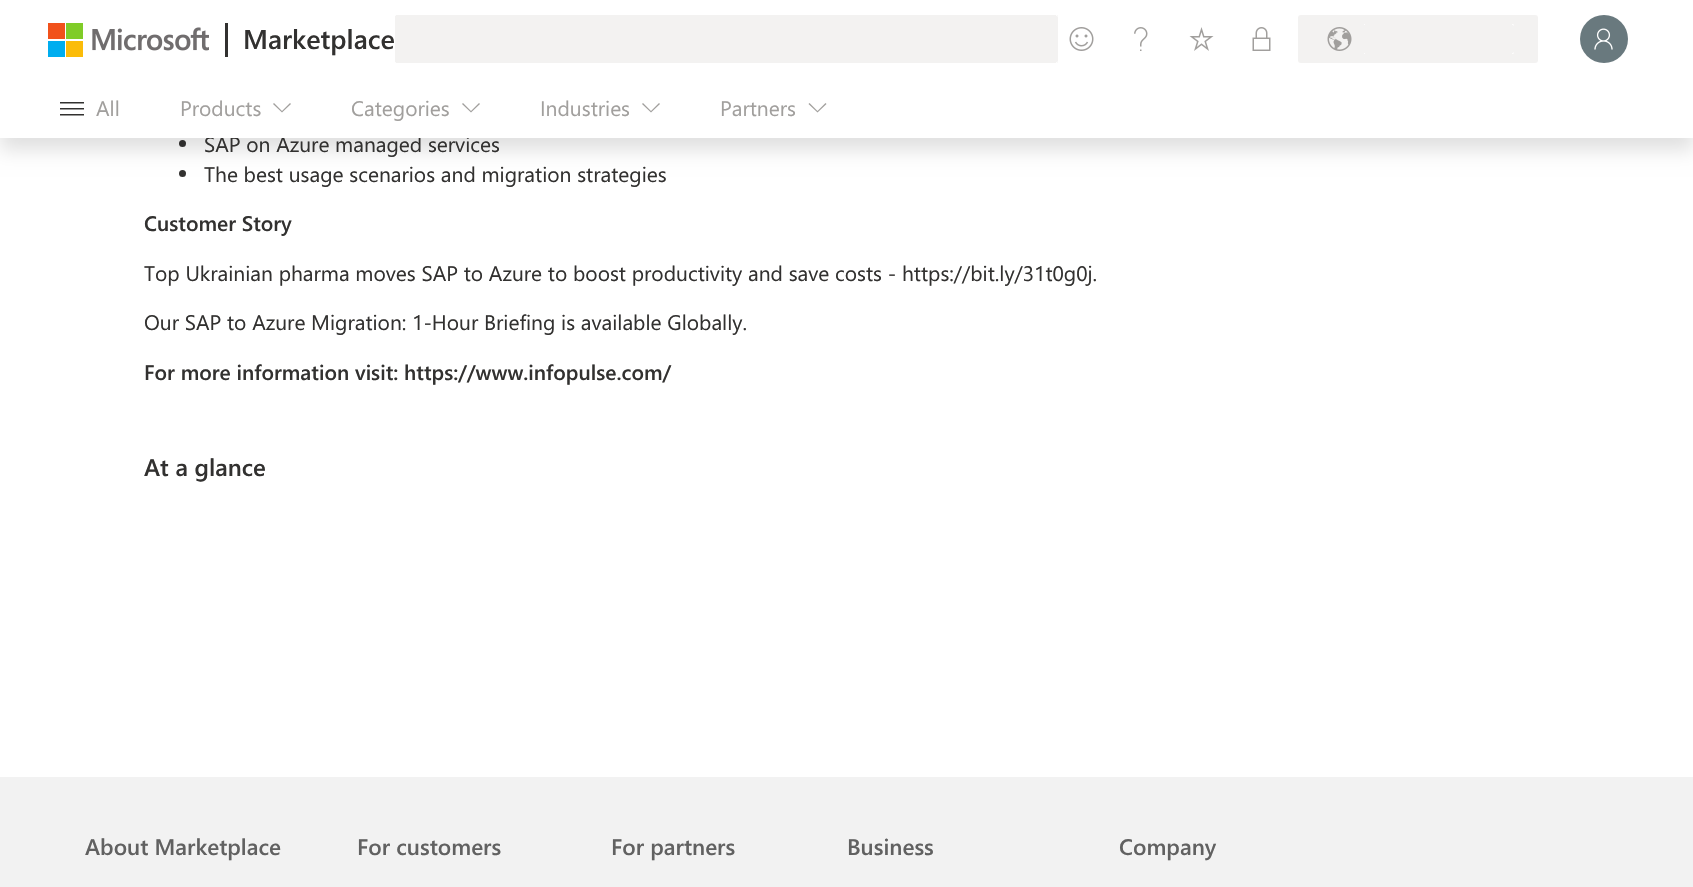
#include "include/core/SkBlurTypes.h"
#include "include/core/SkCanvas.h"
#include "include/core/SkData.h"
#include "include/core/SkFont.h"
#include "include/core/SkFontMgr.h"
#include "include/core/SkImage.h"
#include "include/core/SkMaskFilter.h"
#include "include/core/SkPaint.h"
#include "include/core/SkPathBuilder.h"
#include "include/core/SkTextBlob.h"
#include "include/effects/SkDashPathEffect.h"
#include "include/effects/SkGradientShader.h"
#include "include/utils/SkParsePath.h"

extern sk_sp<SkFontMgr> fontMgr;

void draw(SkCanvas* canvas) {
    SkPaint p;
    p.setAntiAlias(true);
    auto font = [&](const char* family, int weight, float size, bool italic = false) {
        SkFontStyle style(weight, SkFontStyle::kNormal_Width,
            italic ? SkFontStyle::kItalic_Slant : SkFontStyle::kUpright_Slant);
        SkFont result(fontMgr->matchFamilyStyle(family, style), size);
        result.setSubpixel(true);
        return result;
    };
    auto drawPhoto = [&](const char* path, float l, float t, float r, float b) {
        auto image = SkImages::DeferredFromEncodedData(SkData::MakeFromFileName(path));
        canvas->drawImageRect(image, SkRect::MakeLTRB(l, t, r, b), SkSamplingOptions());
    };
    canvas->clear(0xFFFFFFFF);
    p.setColor(0xFF323130);
    canvas->drawCircle(182.5f, 143.5f, 3.5f, p);
    canvas->drawCircle(182.5f, 173.5f, 3.5f, p);
    p.setColor(0x1F000000);
    p.setMaskFilter(SkMaskFilter::MakeBlur(kNormal_SkBlurStyle, 9));
    canvas->drawRect(SkRect::MakeLTRB(0, 12, 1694, 150), p);
    p.setMaskFilter(nullptr);
    auto font1 = font("Segoe UI", 400, 21);
    p.setColor(0xFF323130);
    canvas->drawString("SAP on Azure managed services", 204, 152, font1, p);
    p.setColor(0xFFFFFFFF);
    canvas->drawRect(SkRect::MakeLTRB(0, 0, 1693, 138), p);
    drawPhoto("media/1.png", 48, 23, 209, 57);
    p.setColor(0xFF323130);
    canvas->drawRect(SkRect::MakeLTRB(225, 23, 228, 57), p);
    auto font2 = font("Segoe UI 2", 600, 27);
    canvas->drawString("Marketplace", 243, 49, font2, p);
    p.setColor(0xFFF3F2F1);
    canvas->drawRect(SkRect::MakeLTRB(395, 15, 1058, 63), p);
    p.setColor(0xFFFCFCFC);
    canvas->drawRect(SkRect::MakeLTRB(395, 15, 396, 16), p);
    drawPhoto("media/2.png", 1056, 15, 1058, 17);
    canvas->drawRect(SkRect::MakeLTRB(395, 62, 396, 63), p);
    drawPhoto("media/3.png", 1056, 61, 1058, 63);
    drawPhoto("media/4.png", 1069, 27, 1094, 51);
    drawPhoto("media/5.png", 1134, 27, 1148, 51);
    drawPhoto("media/6.png", 1189, 27, 1214, 51);
    drawPhoto("media/7.png", 1252, 27, 1271, 51);
    p.setColor(0xFFF3F2F1);
    canvas->drawRoundRect(SkRect::MakeLTRB(1298, 15, 1538, 63), 3, 3, p);
    drawPhoto("media/8.png", 1327, 27, 1352, 51);
    p.setColor(0xFFFCFCFC);
    canvas->drawRect(SkRect::MakeLTRB(1364, 24, 1365, 25), p);
    drawPhoto("media/2.png", 1512, 24, 1514, 26);
    canvas->drawRect(SkRect::MakeLTRB(1364, 53, 1365, 54), p);
    drawPhoto("media/3.png", 1512, 52, 1514, 54);
    p.setColor(0xFF69797E);
    canvas->drawCircle(1604, 39, 24, p);
    drawPhoto("media/9.png", 1594, 28, 1613, 50);
    drawPhoto("media/10.png", 60, 102, 84, 116);
    p.setColor(0xFFA19F9D);
    canvas->drawString("All", 96, 116, font1, p);
    canvas->drawString("Products", 180, 116, font1, p);
    canvas->drawPath(SkPathBuilder().moveTo(290, 103).lineTo(291, 104).lineTo(282, 112.5f).lineTo(273, 104).lineTo(274, 103).lineTo(282, 111).close().detach(), p);
    canvas->drawString("Categories", 351, 116, font1, p);
    canvas->drawPath(SkPathBuilder().moveTo(479, 103).lineTo(480, 104).lineTo(471, 112.5f).lineTo(462, 104).lineTo(463, 103).lineTo(471, 111).close().detach(), p);
    canvas->drawString("Industries", 540, 116, font1, p);
    canvas->drawPath(SkPathBuilder().moveTo(659, 103).lineTo(660, 104).lineTo(651, 112.5f).lineTo(642, 104).lineTo(643, 103).lineTo(651, 111).close().detach(), p);
    canvas->drawString("Partners", 720, 116, font1, p);
    canvas->drawPath(SkPathBuilder().moveTo(825.5f, 103).lineTo(826.5f, 104).lineTo(817.5f, 112.5f).lineTo(808.5f, 104).lineTo(809.5f, 103).lineTo(817.5f, 111).close().detach(), p);
    p.setColor(0xFF323130);
    canvas->drawString("The best usage scenarios and migration strategies", 204, 182, font1, p);
    auto font3 = font("Segoe UI 2", 600, 21);
    canvas->drawString("Customer Story", 144, 231, font3, p);
    canvas->drawString("Top Ukrainian pharma moves SAP to Azure to boost productivity and save costs - https://bit.ly/31t0g0j.", 144, 281, font1, p);
    canvas->drawString("Our SAP to Azure Migration: 1-Hour Briefing is available Globally.", 144, 330, font1, p);
    canvas->drawString("For more information visit: https://www.infopulse.com/", 144, 380, font3, p);
    auto font4 = font("Segoe UI 2", 600, 24);
    canvas->drawString("At a glance", 144, 476, font4, p);
    p.setColor(0xFFF2F2F2);
    canvas->drawRect(SkRect::MakeLTRB(0, 777, 1693, 887), p);
    auto font5 = font("Segoe UI", 600, 22.5f);
    p.setColor(0xFF616161);
    {
        const struct { const char* s; float x, y; } items[] = {
            {"About Marketplace", 85, 855},
            {"For customers", 357, 855},
            {"For partners", 611, 855},
            {"Business", 847, 855},
            {"Company", 1119, 855},
        };
        for (auto [s, x, y] : items) {
            canvas->drawString(s, x, y, font5, p);
        }
    }
}
